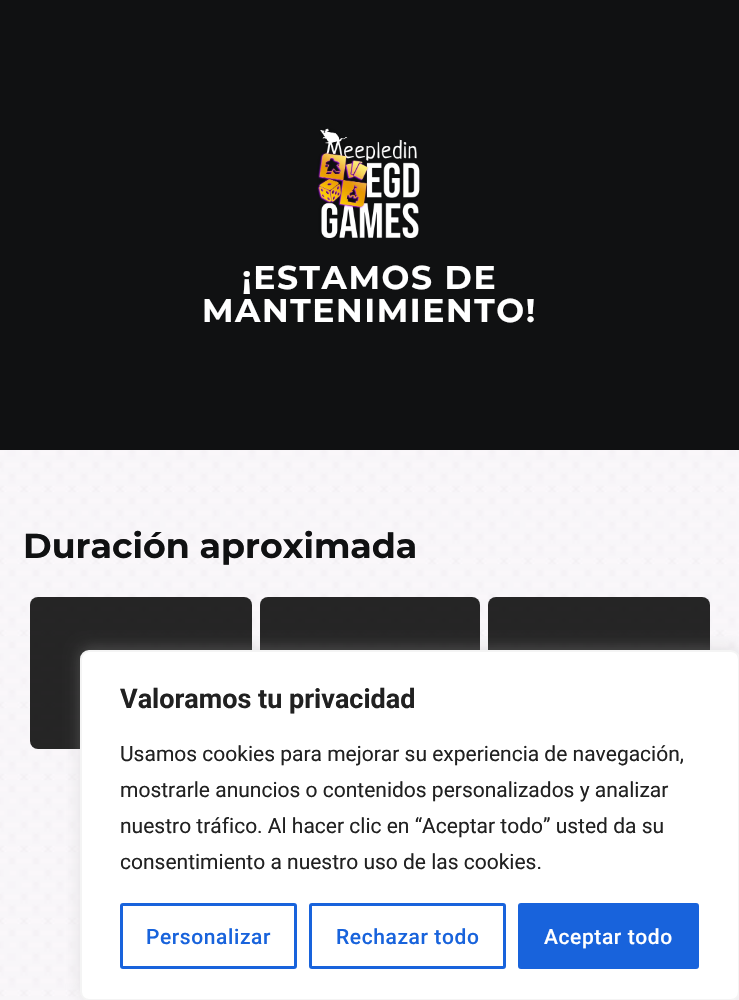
#include "include/core/SkBlurTypes.h"
#include "include/core/SkCanvas.h"
#include "include/core/SkData.h"
#include "include/core/SkFont.h"
#include "include/core/SkFontMgr.h"
#include "include/core/SkImage.h"
#include "include/core/SkMaskFilter.h"
#include "include/core/SkPaint.h"
#include "include/core/SkPathBuilder.h"
#include "include/core/SkTextBlob.h"
#include "include/effects/SkDashPathEffect.h"
#include "include/effects/SkGradientShader.h"
#include "include/utils/SkParsePath.h"

extern sk_sp<SkFontMgr> fontMgr;

void draw(SkCanvas* canvas) {
    SkPaint p;
    p.setAntiAlias(true);
    auto font = [&](const char* family, int weight, float size, bool italic = false) {
        SkFontStyle style(weight, SkFontStyle::kNormal_Width,
            italic ? SkFontStyle::kItalic_Slant : SkFontStyle::kUpright_Slant);
        SkFont result(fontMgr->matchFamilyStyle(family, style), size);
        result.setSubpixel(true);
        return result;
    };
    auto drawTracked = [&](const char* s, float x, float y, const SkFont& font, const SkPaint& ink, float letter, float word) {
        std::vector<SkGlyphID> glyphs(font.countText(s, strlen(s), SkTextEncoding::kUTF8));
        std::vector<float> xs(glyphs.size());
        font.textToGlyphs(s, strlen(s), SkTextEncoding::kUTF8, glyphs);
        font.getXPos(glyphs, xs, x);
        float extra = 0;
        for (size_t i = 0; i < glyphs.size(); i++) {
            xs[i] += extra;
            extra += letter + word * (glyphs[i] == font.unicharToGlyph(' '));
        }
        canvas->drawTextBlob(SkTextBlob::MakeFromPosHGlyphs(glyphs, xs, y, font), 0, 0, ink);
    };
    auto drawPhoto = [&](const char* path, float l, float t, float r, float b) {
        auto image = SkImages::DeferredFromEncodedData(SkData::MakeFromFileName(path));
        canvas->drawImageRect(image, SkRect::MakeLTRB(l, t, r, b), SkSamplingOptions());
    };
    canvas->clear(0xFFFFFFFF);
    drawPhoto("media/1.png", 0, 450, 739, 1000);
    p.setColor(0xFF101112);
    canvas->drawRect(SkRect::MakeLTRB(0, 0, 739, 450), p);
    drawPhoto("media/2.png", 317, 128, 420, 238);
    auto font1 = font("Montserrat", 700, 33);
    p.setColor(0xFFFFFFFF);
    drawTracked("¡ESTAMOS DE", 242, 289, font1, p, 1.6f, 0);
    drawTracked("MANTENIMIENTO!", 202, 322, font1, p, 1.6f, 0);
    auto font2 = font("Montserrat", 700, 34.75f);
    p.setColor(0xFF101112);
    canvas->drawString("Duración aproximada", 23, 558, font2, p);
    p.setColor(0xD9000000);
    canvas->drawRoundRect(SkRect::MakeLTRB(30, 597, 252, 749), 8, 8, p);
    canvas->drawRoundRect(SkRect::MakeLTRB(260, 597, 480, 749), 8, 8, p);
    canvas->drawRoundRect(SkRect::MakeLTRB(488, 597, 710, 749), 8, 8, p);
    p.setColor(0x4DACABAB);
    p.setMaskFilter(SkMaskFilter::MakeBlur(kNormal_SkBlurStyle, 7.5f));
    canvas->drawRoundRect(SkRect::MakeLTRB(80, 648, 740, 999), 9, 9, p);
    p.setMaskFilter(nullptr);
    p.setColor(0xFFFFFFFF);
    canvas->drawRoundRect(SkRect::MakeLTRB(81, 651, 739, 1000), 8, 8, p);
    p.setStyle(SkPaint::kStroke_Style);
    p.setStrokeWidth(2);
    p.setColor(0xFFF4F4F4);
    canvas->drawRoundRect(SkRect::MakeLTRB(81, 651, 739, 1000), 8, 8, p);
    auto font3 = font("Roboto", 700, 27);
    p.setStyle(SkPaint::kFill_Style);
    p.setColor(0xFF212121);
    canvas->drawString("Valoramos tu privacidad", 120, 708, font3, p);
    auto font4 = font("Roboto", 400, 21);
    {
        const struct { const char* s; float x, y; } items[] = {
            {"Usamos cookies para mejorar su experiencia de navegación,", 120, 761},
            {"mostrarle anuncios o contenidos personalizados y analizar", 120, 797},
            {"nuestro tráfico. Al hacer clic en “Aceptar todo” usted da su", 120, 833},
            {"consentimiento a nuestro uso de las cookies.", 120, 869},
        };
        for (auto [s, x, y] : items) {
            canvas->drawString(s, x, y, font4, p);
        }
    }
    p.setStyle(SkPaint::kStroke_Style);
    p.setStrokeWidth(3);
    p.setColor(0xFF1863DC);
    canvas->drawRoundRect(SkRect::MakeLTRB(121.5f, 904.5f, 295.5f, 967.5f), 1.5f, 1.5f, p);
    auto font5 = font("Roboto", 500, 21);
    p.setStyle(SkPaint::kFill_Style);
    drawTracked("Personalizar", 146, 944, font5, p, 0.6f, 0);
    p.setStyle(SkPaint::kStroke_Style);
    canvas->drawRoundRect(SkRect::MakeLTRB(310.5f, 904.5f, 504.5f, 967.5f), 1.5f, 1.5f, p);
    p.setStyle(SkPaint::kFill_Style);
    drawTracked("Rechazar todo", 336, 944, font5, p, 0.6f, 0);
    canvas->drawRoundRect(SkRect::MakeLTRB(519.5f, 904.5f, 697.5f, 967.5f), 1.5f, 1.5f, p);
    p.setStyle(SkPaint::kStroke_Style);
    canvas->drawRoundRect(SkRect::MakeLTRB(519.5f, 904.5f, 697.5f, 967.5f), 1.5f, 1.5f, p);
    p.setStyle(SkPaint::kFill_Style);
    p.setColor(0xFFFFFFFF);
    drawTracked("Aceptar todo", 544, 944, font5, p, 0.6f, 0);
}
